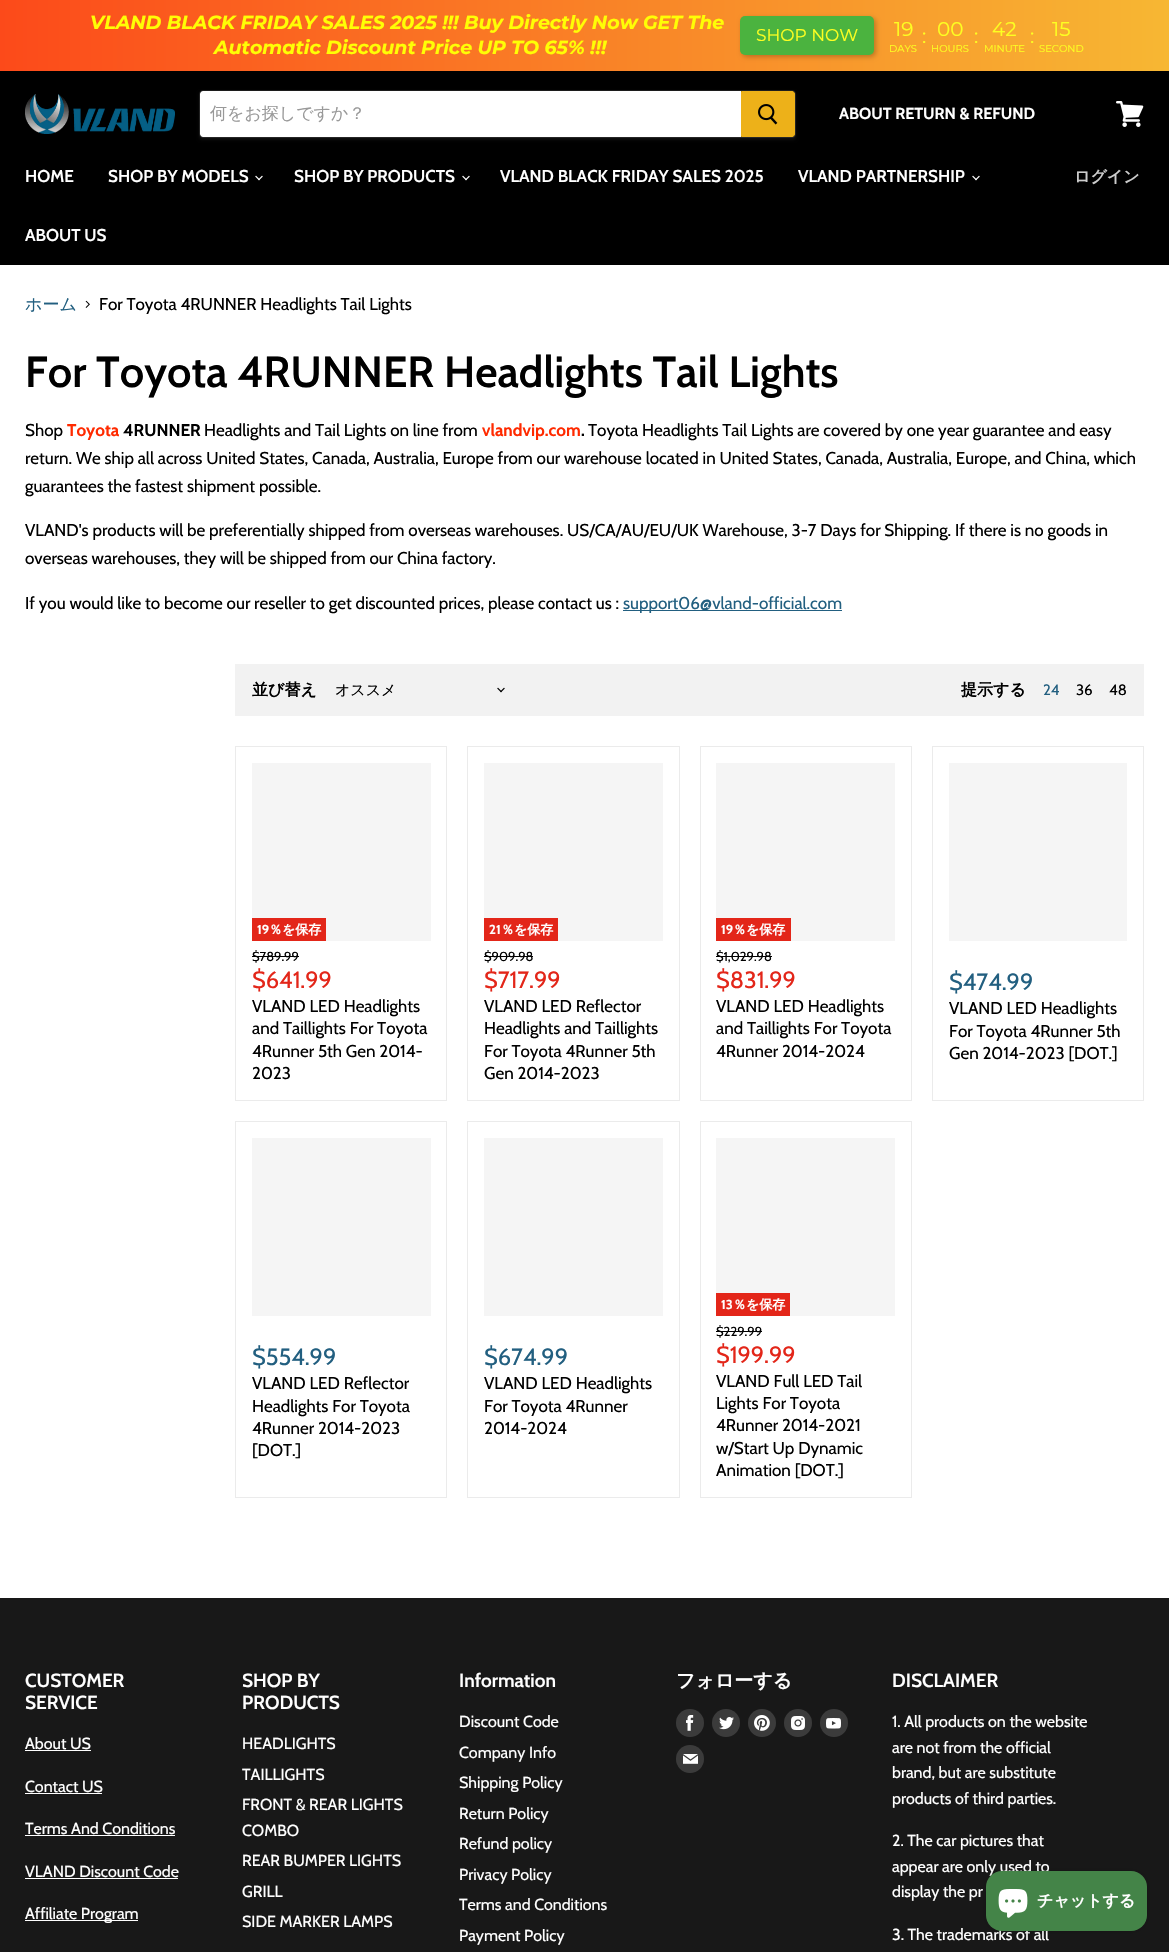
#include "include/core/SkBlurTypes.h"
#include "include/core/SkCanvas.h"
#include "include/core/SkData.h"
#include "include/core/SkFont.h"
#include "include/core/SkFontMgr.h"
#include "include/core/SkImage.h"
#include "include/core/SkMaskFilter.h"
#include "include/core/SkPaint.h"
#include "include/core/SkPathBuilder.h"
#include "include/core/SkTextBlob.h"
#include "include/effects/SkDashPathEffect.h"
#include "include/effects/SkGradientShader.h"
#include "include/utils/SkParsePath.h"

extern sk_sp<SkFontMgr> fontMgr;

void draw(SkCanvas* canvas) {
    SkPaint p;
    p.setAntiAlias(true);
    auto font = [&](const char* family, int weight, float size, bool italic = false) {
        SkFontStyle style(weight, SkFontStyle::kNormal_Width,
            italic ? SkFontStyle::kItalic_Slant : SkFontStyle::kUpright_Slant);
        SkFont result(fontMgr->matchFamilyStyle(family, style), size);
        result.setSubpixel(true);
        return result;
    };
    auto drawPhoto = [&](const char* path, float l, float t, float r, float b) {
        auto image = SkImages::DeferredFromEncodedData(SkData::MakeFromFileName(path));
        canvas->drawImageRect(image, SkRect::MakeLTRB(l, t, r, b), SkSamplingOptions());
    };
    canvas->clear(0xFFFFFFFF);
    {
        const SkColor colors[] = {0xFFFC4A1A, 0xFFF7B733};
        const float stops[] = {0, 1};
        const SkPoint ends[] = {{0, 36}, {1169, 35}};
        p.setShader(SkGradientShader::MakeLinear(ends, colors, stops, 2, SkTileMode::kClamp));
        p.setAlpha(255);
    }
    canvas->drawRect(SkRect::MakeLTRB(0, 0, 1169, 71), p);
    auto font1 = font("Montserrat", 700, 19, true);
    p.setShader(nullptr);
    p.setColor(0xFFFFFE05);
    canvas->drawString("VLAND BLACK FRIDAY SALES 2025 !!! Buy Directly Now GET The", 90, 29, font1, p);
    canvas->drawString("Automatic Discount Price UP TO 65% !!!", 214, 54, font1, p);
    p.setColor(0x3D000000);
    p.setMaskFilter(SkMaskFilter::MakeBlur(kNormal_SkBlurStyle, 2.5f));
    canvas->drawRoundRect(SkRect::MakeLTRB(742, 18, 876, 57), 5, 5, p);
    p.setMaskFilter(nullptr);
    p.setColor(0xFF4BB33F);
    canvas->drawRoundRect(SkRect::MakeLTRB(740, 16, 874, 55), 5, 5, p);
    auto font2 = font("Montserrat", 400, 17);
    p.setColor(0xFFFDFF21);
    canvas->drawString("SHOP NOW", 756, 41, font2, p);
    auto font3 = font("Montserrat", 400, 20);
    canvas->drawString("19", 894, 36, font3, p);
    auto font4 = font("Montserrat", 400, 10);
    canvas->drawString("DAYS", 889, 52, font4, p);
    canvas->drawString(":", 922, 43, font3, p);
    canvas->drawString("00", 937, 36, font3, p);
    canvas->drawString("HOURS", 931, 52, font4, p);
    canvas->drawString(":", 974, 43, font3, p);
    canvas->drawString("42", 992, 36, font3, p);
    canvas->drawString("MINUTE", 984, 52, font4, p);
    canvas->drawString(":", 1030, 43, font3, p);
    canvas->drawString("15", 1052, 36, font3, p);
    canvas->drawString("SECOND", 1039, 52, font4, p);
    p.setColor(0xFF000000);
    canvas->drawRect(SkRect::MakeLTRB(0, 71, 1169, 265), p);
    drawPhoto("media/1.png", 25, 94, 175, 134);
    p.setColor(0x1C808080);
    p.setMaskFilter(SkMaskFilter::MakeBlur(kNormal_SkBlurStyle, 1.5f));
    canvas->drawRoundRect(SkRect::MakeLTRB(199, 92, 796, 140), 4, 4, p);
    p.setMaskFilter(nullptr);
    p.setStyle(SkPaint::kStroke_Style);
    p.setStrokeWidth(1);
    p.setColor(0x33808080);
    canvas->drawRoundRect(SkRect::MakeLTRB(199.5f, 90.5f, 795.5f, 137.5f), 3.5f, 3.5f, p);
    p.setStyle(SkPaint::kFill_Style);
    p.setColor(0xFFFFFFFF);
    canvas->drawPath(SkPathBuilder().moveTo(203, 91).lineTo(741, 91).lineTo(741, 137).lineTo(203, 137).cubicTo(201.5f, 137, 200, 135.5f, 200, 134).lineTo(200, 94).cubicTo(200, 92.5f, 201.5f, 91, 203, 91).close().detach(), p);
    auto font5 = font("WenQuanYi Zen Hei", 500, 17);
    p.setColor(0xFF999999);
    canvas->drawString("何をお探しですか？", 210, 119, font5, p);
    p.setColor(0xFFEDB119);
    canvas->drawPath(SkPathBuilder().moveTo(741.5f, 91.5f).lineTo(792, 91.5f).cubicTo(793.5f, 91.5f, 794.5f, 92.5f, 794.5f, 94).lineTo(794.5f, 134).cubicTo(794.5f, 135.5f, 793.5f, 136.5f, 792, 136.5f).lineTo(741.5f, 136.5f).close().detach(), p);
    p.setStyle(SkPaint::kStroke_Style);
    canvas->drawPath(SkPathBuilder().moveTo(741.5f, 91.5f).lineTo(792, 91.5f).cubicTo(793.5f, 91.5f, 794.5f, 92.5f, 794.5f, 94).lineTo(794.5f, 134).cubicTo(794.5f, 135.5f, 793.5f, 136.5f, 792, 136.5f).lineTo(741.5f, 136.5f).close().detach(), p);
    drawPhoto("media/2.png", 758, 104, 778, 125);
    auto font6 = font("Cabin", 700, 16);
    p.setStyle(SkPaint::kFill_Style);
    p.setColor(0xFFFFFFFF);
    canvas->drawString("ABOUT RETURN & REFUND", 839, 119, font6, p);
    drawPhoto("media/3.png", 1116, 101, 1144, 127);
    auto font7 = font("Cabin", 600, 17);
    canvas->drawString("HOME", 25, 182, font7, p);
    canvas->drawString("SHOP BY MODELS", 108, 182, font7, p);
    drawPhoto("media/4.png", 255, 175, 263, 181);
    canvas->drawString("SHOP BY PRODUCTS", 294, 182, font7, p);
    drawPhoto("media/4.png", 462, 175, 470, 181);
    canvas->drawString("VLAND BLACK FRIDAY SALES 2025", 500, 182, font7, p);
    canvas->drawString("VLAND PARTNERSHIP", 798, 182, font7, p);
    drawPhoto("media/4.png", 972, 175, 980, 181);
    canvas->drawString("ABOUT US", 25, 241, font7, p);
    auto font8 = font("WenQuanYi Zen Hei", 700, 16);
    p.setColor(0xFFCCCCCC);
    canvas->drawString("ログイン", 1074, 182, font8, p);
    p.setColor(0xFF225F80);
    canvas->drawString("ホーム", 25, 310, font5, p);
    drawPhoto("media/5.png", 85, 300, 90, 308);
    auto font9 = font("Cabin", 400, 17);
    p.setColor(0xFF000000);
    canvas->drawString("For Toyota 4RUNNER Headlights Tail Lights", 99, 310, font9, p);
    auto font10 = font("Cabin", 600, 43.4f);
    canvas->drawString("For Toyota 4RUNNER Headlights Tail Lights", 25, 387, font10, p);
    canvas->drawString("Shop", 25, 436, font9, p);
    auto font11 = font("Cabin", 700, 17);
    p.setColor(0xFFFF2A00);
    canvas->drawString("Toyota", 67, 436, font11, p);
    p.setColor(0xFF000000);
    canvas->drawString("4RUNNER", 123, 436, font11, p);
    canvas->drawString("Headlights and Tail Lights on line from", 204, 436, font9, p);
    p.setColor(0xFFFF2A00);
    canvas->drawString("vlandvip.com", 482, 436, font11, p);
    p.setColor(0xFF000000);
    canvas->drawString(".", 581, 436, font11, p);
    {
        const struct { const char* s; float x, y; } items[] = {
            {"Toyota Headlights Tail Lights are covered by one year guarantee and easy", 588, 436},
            {"return. We ship all across United States, Canada, Australia, Europe from our warehouse located in United States, Canada, Australia, Europe, and China, which", 25, 464},
            {"guarantees the fastest shipment possible.", 25, 492},
            {"VLAND's products will be preferentially shipped from overseas warehouses. US/CA/AU/EU/UK Warehouse, 3-7 Days for Shipping. If there is no goods in", 25, 536},
            {"overseas warehouses, they will be shipped from our China factory.", 25, 564},
            {"If you would like to become our reseller to get discounted prices, please contact us :", 25, 609},
        };
        for (auto [s, x, y] : items) {
            canvas->drawString(s, x, y, font9, p);
        }
    }
    p.setColor(0xFF225F80);
    canvas->drawRect(SkRect::MakeLTRB(623, 610, 842, 611), p);
    canvas->drawString("support06@vland-official.com", 623, 609, font9, p);
    p.setColor(0xFFF2F2F2);
    canvas->drawRect(SkRect::MakeLTRB(235, 664, 1144, 716), p);
    p.setColor(0xFF000000);
    canvas->drawString("並び替え", 252, 695, font8, p);
    auto font12 = font("WenQuanYi Zen Hei", 500, 15);
    canvas->drawString("オススメ", 335, 695, font12, p);
    drawPhoto("media/6.png", 497, 687, 505, 693);
    canvas->drawString("提示する", 961, 695, font8, p);
    auto font13 = font("Cabin", 400, 15);
    p.setColor(0xFF225F80);
    canvas->drawString("24", 1043, 695, font13, p);
    p.setColor(0xFF000000);
    canvas->drawString("36", 1076, 695, font13, p);
    canvas->drawString("48", 1109, 695, font13, p);
    p.setStyle(SkPaint::kStroke_Style);
    p.setColor(0xFFEBEBEB);
    canvas->drawRect(SkRect::MakeLTRB(235.5f, 746.5f, 446.5f, 1100.5f), p);
    p.setStyle(SkPaint::kFill_Style);
    p.setColor(0xFFF5F5F5);
    canvas->drawRect(SkRect::MakeLTRB(252, 763, 431, 941), p);
    p.setColor(0xFFE32619);
    canvas->drawRect(SkRect::MakeLTRB(252, 918, 326, 941), p);
    auto font14 = font("Cabin", 700, 13);
    p.setColor(0xFFFFFFFF);
    canvas->drawString("19", 257, 934, font14, p);
    auto font15 = font("WenQuanYi Zen Hei", 700, 13);
    canvas->drawString("％を保存", 269, 934, font15, p);
    auto font16 = font("Cabin", 400, 13);
    p.setColor(0xFF000000);
    canvas->drawString("$789.99", 252, 961, font16, p);
    canvas->drawRect(SkRect::MakeLTRB(252, 956, 299, 957), p);
    auto font17 = font("Cabin", 400, 23.5f);
    p.setColor(0xFFE32619);
    canvas->drawString("$641.99", 252, 988, font17, p);
    p.setColor(0xFF000000);
    {
        const struct { const char* s; float x, y; } items[] = {
            {"VLAND LED Headlights", 252, 1012},
            {"and Taillights For Toyota", 252, 1034},
            {"4Runner 5th Gen 2014-", 252, 1057},
            {"2023", 252, 1079},
        };
        for (auto [s, x, y] : items) {
            canvas->drawString(s, x, y, font9, p);
        }
    }
    p.setStyle(SkPaint::kStroke_Style);
    p.setColor(0xFFEBEBEB);
    canvas->drawRect(SkRect::MakeLTRB(467.5f, 746.5f, 679.5f, 1100.5f), p);
    p.setStyle(SkPaint::kFill_Style);
    p.setColor(0xFFF5F5F5);
    canvas->drawRect(SkRect::MakeLTRB(484, 763, 663, 941), p);
    p.setColor(0xFFE32619);
    canvas->drawRect(SkRect::MakeLTRB(484, 918, 558, 941), p);
    p.setColor(0xFFFFFFFF);
    canvas->drawString("21", 489, 934, font14, p);
    canvas->drawString("％を保存", 501, 934, font15, p);
    p.setColor(0xFF000000);
    canvas->drawString("$909.98", 484, 961, font16, p);
    canvas->drawRect(SkRect::MakeLTRB(484, 956, 533, 957), p);
    p.setColor(0xFFE32619);
    canvas->drawString("$717.99", 484, 988, font17, p);
    p.setColor(0xFF000000);
    {
        const struct { const char* s; float x, y; } items[] = {
            {"VLAND LED Reflector", 484, 1012},
            {"Headlights and Taillights", 484, 1034},
            {"For Toyota 4Runner 5th", 484, 1057},
            {"Gen 2014-2023", 484, 1079},
        };
        for (auto [s, x, y] : items) {
            canvas->drawString(s, x, y, font9, p);
        }
    }
    p.setStyle(SkPaint::kStroke_Style);
    p.setColor(0xFFEBEBEB);
    canvas->drawRect(SkRect::MakeLTRB(700.5f, 746.5f, 911.5f, 1100.5f), p);
    p.setStyle(SkPaint::kFill_Style);
    p.setColor(0xFFF5F5F5);
    canvas->drawRect(SkRect::MakeLTRB(716, 763, 895, 941), p);
    p.setColor(0xFFE32619);
    canvas->drawRect(SkRect::MakeLTRB(716, 918, 791, 941), p);
    p.setColor(0xFFFFFFFF);
    canvas->drawString("19", 721, 934, font14, p);
    canvas->drawString("％を保存", 733, 934, font15, p);
    p.setColor(0xFF000000);
    canvas->drawString("$1,029.98", 716, 961, font16, p);
    canvas->drawRect(SkRect::MakeLTRB(716, 956, 772, 957), p);
    p.setColor(0xFFE32619);
    canvas->drawString("$831.99", 716, 988, font17, p);
    p.setColor(0xFF000000);
    {
        const struct { const char* s; float x, y; } items[] = {
            {"VLAND LED Headlights", 716, 1012},
            {"and Taillights For Toyota", 716, 1034},
            {"4Runner 2014-2024", 716, 1057},
        };
        for (auto [s, x, y] : items) {
            canvas->drawString(s, x, y, font9, p);
        }
    }
    p.setStyle(SkPaint::kStroke_Style);
    p.setColor(0xFFEBEBEB);
    canvas->drawRect(SkRect::MakeLTRB(932.5f, 746.5f, 1143.5f, 1100.5f), p);
    p.setStyle(SkPaint::kFill_Style);
    p.setColor(0xFFF5F5F5);
    canvas->drawRect(SkRect::MakeLTRB(949, 763, 1127, 941), p);
    p.setColor(0xFF225F80);
    canvas->drawString("$474.99", 949, 990, font17, p);
    p.setColor(0xFF000000);
    {
        const struct { const char* s; float x, y; } items[] = {
            {"VLAND LED Headlights", 949, 1014},
            {"For Toyota 4Runner 5th", 949, 1037},
            {"Gen 2014-2023 [DOT.]", 949, 1059},
        };
        for (auto [s, x, y] : items) {
            canvas->drawString(s, x, y, font9, p);
        }
    }
    p.setStyle(SkPaint::kStroke_Style);
    p.setColor(0xFFEBEBEB);
    canvas->drawRect(SkRect::MakeLTRB(235.5f, 1121.5f, 446.5f, 1497.5f), p);
    p.setStyle(SkPaint::kFill_Style);
    p.setColor(0xFFF5F5F5);
    canvas->drawRect(SkRect::MakeLTRB(252, 1138, 431, 1316), p);
    p.setColor(0xFF225F80);
    canvas->drawString("$554.99", 252, 1365, font17, p);
    p.setColor(0xFF000000);
    {
        const struct { const char* s; float x, y; } items[] = {
            {"VLAND LED Reflector", 252, 1389},
            {"Headlights For Toyota", 252, 1412},
            {"4Runner 2014-2023", 252, 1434},
            {"[DOT.]", 252, 1456},
        };
        for (auto [s, x, y] : items) {
            canvas->drawString(s, x, y, font9, p);
        }
    }
    p.setStyle(SkPaint::kStroke_Style);
    p.setColor(0xFFEBEBEB);
    canvas->drawRect(SkRect::MakeLTRB(467.5f, 1121.5f, 679.5f, 1497.5f), p);
    p.setStyle(SkPaint::kFill_Style);
    p.setColor(0xFFF5F5F5);
    canvas->drawRect(SkRect::MakeLTRB(484, 1138, 663, 1316), p);
    p.setColor(0xFF225F80);
    canvas->drawString("$674.99", 484, 1365, font17, p);
    p.setColor(0xFF000000);
    {
        const struct { const char* s; float x, y; } items[] = {
            {"VLAND LED Headlights", 484, 1389},
            {"For Toyota 4Runner", 484, 1412},
            {"2014-2024", 484, 1434},
        };
        for (auto [s, x, y] : items) {
            canvas->drawString(s, x, y, font9, p);
        }
    }
    p.setStyle(SkPaint::kStroke_Style);
    p.setColor(0xFFEBEBEB);
    canvas->drawRect(SkRect::MakeLTRB(700.5f, 1121.5f, 911.5f, 1497.5f), p);
    p.setStyle(SkPaint::kFill_Style);
    p.setColor(0xFFF5F5F5);
    canvas->drawRect(SkRect::MakeLTRB(716, 1138, 895, 1316), p);
    p.setColor(0xFFE32619);
    canvas->drawRect(SkRect::MakeLTRB(716, 1293, 790, 1316), p);
    p.setColor(0xFFFFFFFF);
    canvas->drawString("13", 721, 1309, font14, p);
    canvas->drawString("％を保存", 733, 1309, font15, p);
    p.setColor(0xFF000000);
    canvas->drawString("$229.99", 716, 1336, font16, p);
    canvas->drawRect(SkRect::MakeLTRB(716, 1331, 762, 1332), p);
    p.setColor(0xFFE32619);
    canvas->drawString("$199.99", 716, 1363, font17, p);
    p.setColor(0xFF000000);
    {
        const struct { const char* s; float x, y; } items[] = {
            {"VLAND Full LED Tail", 716, 1387},
            {"Lights For Toyota", 716, 1409},
            {"4Runner 2014-2021", 716, 1431},
            {"w/Start Up Dynamic", 716, 1454},
            {"Animation [DOT.]", 716, 1476},
        };
        for (auto [s, x, y] : items) {
            canvas->drawString(s, x, y, font9, p);
        }
    }
    p.setColor(0xFF181818);
    canvas->drawRect(SkRect::MakeLTRB(0, 1598, 1169, 1952), p);
    auto font18 = font("Cabin", 600, 19);
    p.setColor(0xFFFFFFFF);
    canvas->drawString("CUSTOMER", 25, 1687, font18, p);
    canvas->drawString("SERVICE", 25, 1709, font18, p);
    auto font19 = font("Cabin", 400, 16);
    canvas->drawString("About US", 25, 1749, font19, p);
    canvas->drawRect(SkRect::MakeLTRB(25, 1750, 91, 1751), p);
    canvas->drawString("Contact US", 25, 1792, font19, p);
    canvas->drawRect(SkRect::MakeLTRB(25, 1793, 102, 1794), p);
    canvas->drawString("Terms And Conditions", 25, 1834, font19, p);
    canvas->drawRect(SkRect::MakeLTRB(25, 1835, 175, 1836), p);
    canvas->drawString("VLAND Discount Code", 25, 1877, font19, p);
    canvas->drawRect(SkRect::MakeLTRB(25, 1878, 178, 1879), p);
    canvas->drawRect(SkRect::MakeLTRB(25, 1920, 138, 1921), p);
    canvas->drawString("Affiliate Program", 25, 1919, font19, p);
    canvas->drawString("SHOP BY", 242, 1687, font18, p);
    canvas->drawString("PRODUCTS", 242, 1709, font18, p);
    {
        const struct { const char* s; float x, y; } items[] = {
            {"HEADLIGHTS", 242, 1749},
            {"TAILLIGHTS", 242, 1780},
            {"FRONT & REAR LIGHTS", 242, 1810},
            {"COMBO", 242, 1836},
            {"REAR BUMPER LIGHTS", 242, 1866},
            {"GRILL", 242, 1897},
            {"SIDE MARKER LAMPS", 242, 1927},
        };
        for (auto [s, x, y] : items) {
            canvas->drawString(s, x, y, font19, p);
        }
    }
    canvas->drawString("Information", 459, 1687, font18, p);
    {
        const struct { const char* s; float x, y; } items[] = {
            {"Discount Code", 459, 1727},
            {"Company Info", 459, 1758},
            {"Shipping Policy", 459, 1788},
            {"Return Policy", 459, 1819},
            {"Refund policy", 459, 1849},
            {"Privacy Policy", 459, 1880},
            {"Terms and Conditions", 459, 1910},
            {"Payment Policy", 459, 1941},
        };
        for (auto [s, x, y] : items) {
            canvas->drawString(s, x, y, font19, p);
        }
    }
    auto font20 = font("WenQuanYi Zen Hei", 700, 19);
    canvas->drawString("フォローする", 676, 1687, font20, p);
    p.setColor(0xFF3B3B3B);
    canvas->drawCircle(690, 1723, 14, p);
    drawPhoto("media/7.png", 686, 1715, 694, 1731);
    canvas->drawCircle(726, 1723, 14, p);
    drawPhoto("media/8.png", 719, 1717, 734, 1730);
    canvas->drawCircle(762, 1723, 14, p);
    drawPhoto("media/9.png", 754, 1715, 770, 1731);
    canvas->drawCircle(798, 1723, 14, p);
    drawPhoto("media/10.png", 791, 1716, 805, 1730);
    canvas->drawCircle(834, 1723, 14, p);
    drawPhoto("media/11.png", 826, 1718, 841, 1729);
    canvas->drawCircle(690, 1759, 14, p);
    drawPhoto("media/12.png", 683, 1754, 698, 1764);
    p.setColor(0xFFFFFFFF);
    canvas->drawString("DISCLAIMER", 892, 1687, font18, p);
    {
        const struct { const char* s; float x, y; } items[] = {
            {"1. All products on the website", 892, 1727},
            {"are not from the official", 892, 1753},
            {"brand, but are substitute", 892, 1778},
            {"products of third parties.", 892, 1804},
            {"2. The car pictures that", 892, 1846},
            {"appear are only used to", 892, 1872},
            {"display the pr", 892, 1897},
            {"3. The trademarks of all", 892, 1940},
        };
        for (auto [s, x, y] : items) {
            canvas->drawString(s, x, y, font19, p);
        }
    }
    p.setColor(0x26000000);
    p.setMaskFilter(SkMaskFilter::MakeBlur(kNormal_SkBlurStyle, 2.5f));
    canvas->drawRoundRect(SkRect::MakeLTRB(986, 1871, 1147, 1931), 16, 16, p);
    p.setMaskFilter(nullptr);
    p.setColor(0xFF448448);
    canvas->drawRoundRect(SkRect::MakeLTRB(986, 1871, 1147, 1931), 16, 16, p);
    drawPhoto("media/13.png", 998, 1889, 1028, 1918);
    p.setColor(0xFFFFFFFF);
    canvas->drawString("チャットする", 1037, 1906, font8, p);
}
